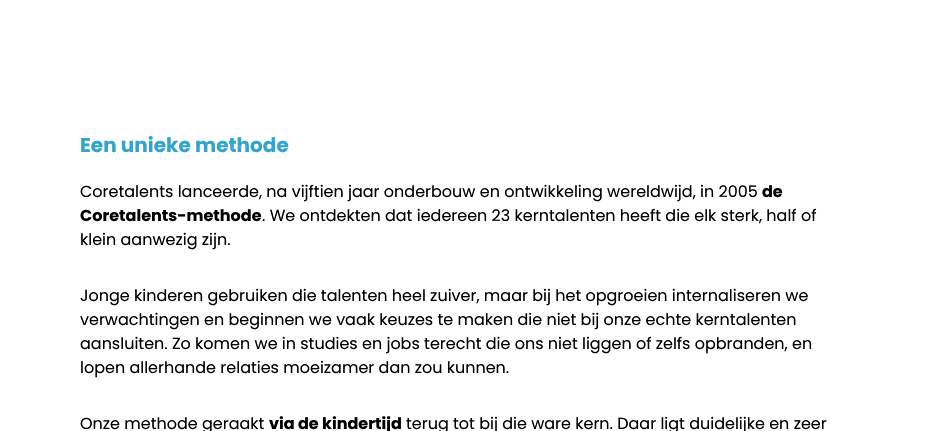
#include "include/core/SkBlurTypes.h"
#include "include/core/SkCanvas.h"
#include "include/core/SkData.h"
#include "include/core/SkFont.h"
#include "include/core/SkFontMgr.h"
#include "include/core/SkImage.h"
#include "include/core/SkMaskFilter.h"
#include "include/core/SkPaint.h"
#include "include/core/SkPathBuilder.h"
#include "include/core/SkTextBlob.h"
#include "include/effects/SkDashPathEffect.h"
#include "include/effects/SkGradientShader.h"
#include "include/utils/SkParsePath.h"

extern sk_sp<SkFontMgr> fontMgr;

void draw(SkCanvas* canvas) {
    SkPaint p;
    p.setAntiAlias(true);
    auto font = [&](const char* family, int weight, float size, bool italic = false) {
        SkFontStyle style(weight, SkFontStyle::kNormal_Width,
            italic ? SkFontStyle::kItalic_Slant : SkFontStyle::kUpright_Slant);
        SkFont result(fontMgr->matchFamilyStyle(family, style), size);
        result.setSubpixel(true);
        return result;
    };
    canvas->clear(0xFFFFFFFF);
    auto font1 = font("Poppins", 700, 20);
    p.setColor(0xFF33A5CB);
    canvas->drawString("Een unieke methode", 80, 152, font1, p);
    auto font2 = font("Poppins", 400, 16);
    p.setColor(0xFF000000);
    canvas->drawString("Coretalents lanceerde, na vijftien jaar onderbouw en ontwikkeling wereldwijd, in 2005", 80, 197, font2, p);
    auto font3 = font("Poppins", 700, 16);
    canvas->drawString("de", 762, 197, font3, p);
    canvas->drawString("Coretalents-methode", 80, 221, font3, p);
    {
        const struct { const char* s; float x, y; } items[] = {
            {". We ontdekten dat iedereen 23 kerntalenten heeft die elk sterk, half of", 262, 221},
            {"klein aanwezig zijn.", 80, 245},
            {"Jonge kinderen gebruiken die talenten heel zuiver, maar bij het opgroeien internaliseren we", 80, 301},
            {"verwachtingen en beginnen we vaak keuzes te maken die niet bij onze echte kerntalenten", 80, 325},
            {"aansluiten. Zo komen we in studies en jobs terecht die ons niet liggen of zelfs opbranden, en", 80, 349},
            {"lopen allerhande relaties moeizamer dan zou kunnen.", 80, 373},
            {"Onze methode geraakt", 80, 429},
        };
        for (auto [s, x, y] : items) {
            canvas->drawString(s, x, y, font2, p);
        }
    }
    canvas->drawString("via de kindertijd", 269, 429, font3, p);
    canvas->drawString("terug tot bij die ware kern. Daar ligt duidelijke en zeer", 406, 429, font2, p);
}
